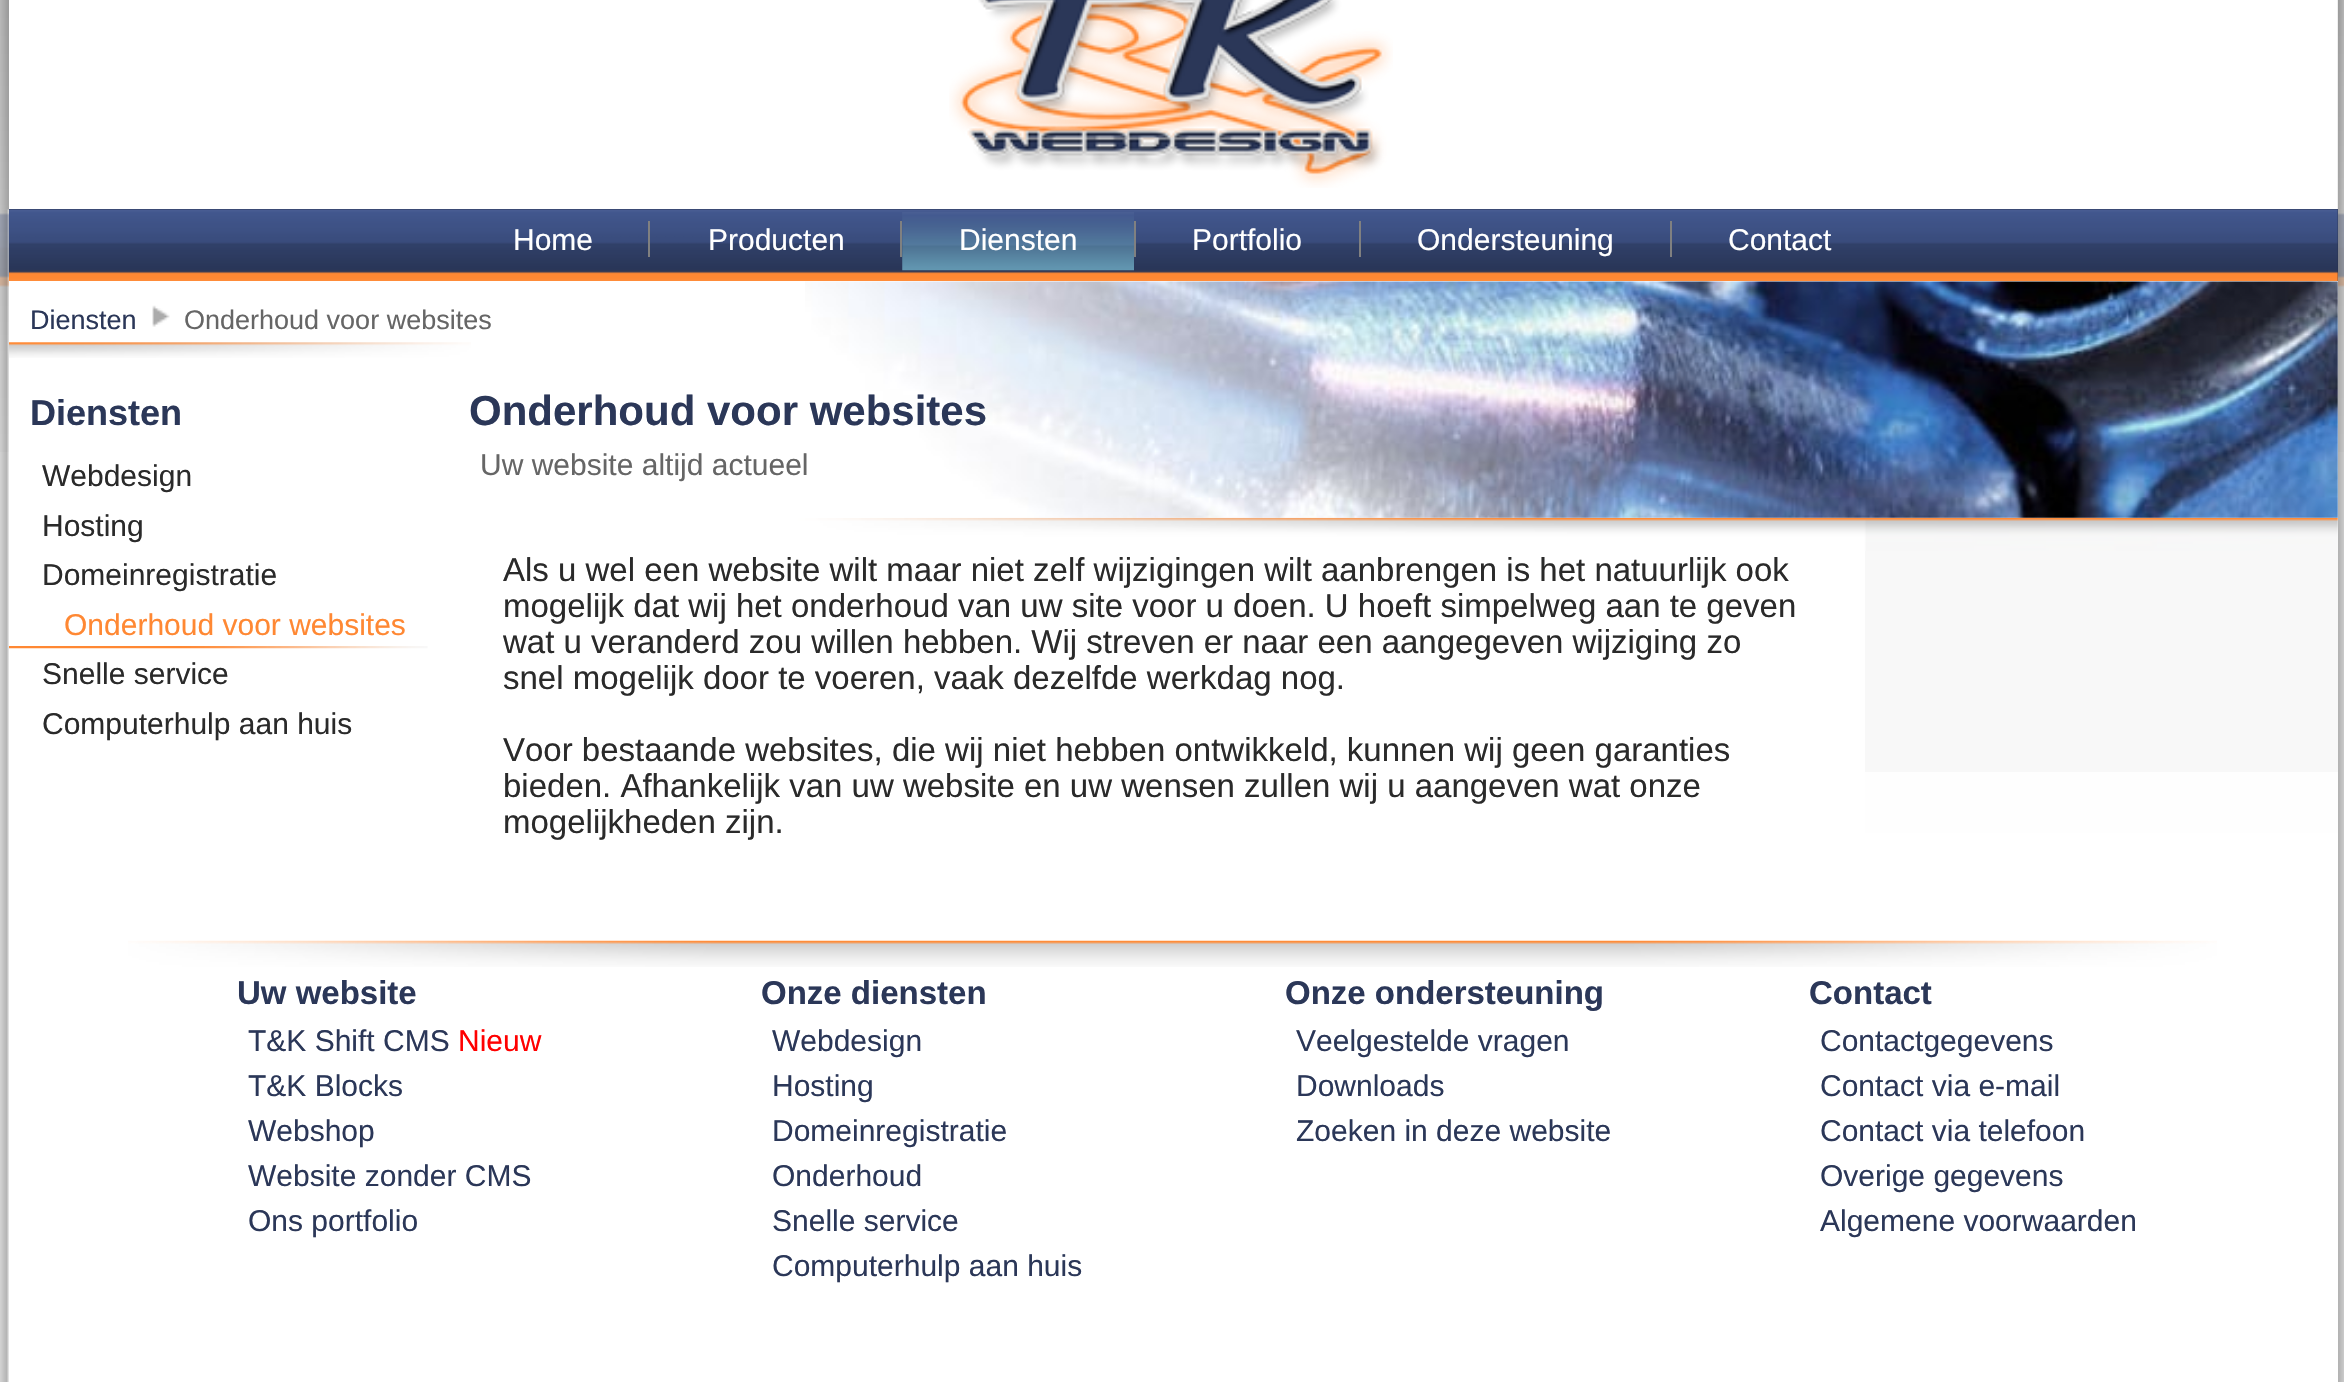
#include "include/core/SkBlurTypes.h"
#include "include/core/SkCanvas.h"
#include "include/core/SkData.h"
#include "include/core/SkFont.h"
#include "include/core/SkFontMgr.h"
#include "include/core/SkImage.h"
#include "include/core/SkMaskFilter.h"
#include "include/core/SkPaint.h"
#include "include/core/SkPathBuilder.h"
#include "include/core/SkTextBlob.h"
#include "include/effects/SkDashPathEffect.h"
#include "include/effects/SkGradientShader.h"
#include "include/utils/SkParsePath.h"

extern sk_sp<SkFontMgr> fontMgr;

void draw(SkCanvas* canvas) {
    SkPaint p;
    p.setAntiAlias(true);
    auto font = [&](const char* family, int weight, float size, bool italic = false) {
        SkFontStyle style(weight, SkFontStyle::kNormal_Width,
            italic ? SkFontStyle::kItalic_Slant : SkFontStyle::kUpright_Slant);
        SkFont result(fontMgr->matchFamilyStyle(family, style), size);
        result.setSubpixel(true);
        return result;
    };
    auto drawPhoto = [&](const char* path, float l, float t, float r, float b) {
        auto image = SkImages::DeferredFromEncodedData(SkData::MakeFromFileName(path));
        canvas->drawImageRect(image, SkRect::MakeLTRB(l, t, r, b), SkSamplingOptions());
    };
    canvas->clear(0xFFF1F1F1);
    drawPhoto("media/1.png", 0, 0, 2344, 452);
    drawPhoto("media/2.png", 0, 0, 9, 210);
    p.setColor(0xFFFFFFFF);
    canvas->drawRect(SkRect::MakeLTRB(9, 0, 2338, 209), p);
    drawPhoto("media/3.png", 949, 0, 1393, 188);
    drawPhoto("media/4.png", 2337, 0, 2344, 210);
    drawPhoto("media/5.png", 0, 209, 9, 1382);
    p.setColor(0xFF2B3758);
    canvas->drawRect(SkRect::MakeLTRB(9, 209, 2338, 281), p);
    drawPhoto("media/6.png", 9, 209, 2338, 281);
    auto font1 = font("Liberation Sans", 400, 30);
    p.setColor(0xFFFFFFFF);
    canvas->drawString("Producten", 708, 250, font1, p);
    p.setColor(0xFF808080);
    canvas->drawRect(SkRect::MakeLTRB(648, 221, 650, 257), p);
    drawPhoto("media/7.png", 902, 212, 1134, 271);
    p.setColor(0xFFFFFFFF);
    canvas->drawString("Home", 513, 250, font1, p);
    canvas->drawString("Diensten", 959, 250, font1, p);
    p.setColor(0xFF808080);
    canvas->drawRect(SkRect::MakeLTRB(900, 221, 902, 257), p);
    p.setColor(0xFFFFFFFF);
    canvas->drawString("Portfolio", 1192, 250, font1, p);
    p.setColor(0xFF808080);
    canvas->drawRect(SkRect::MakeLTRB(1134, 221, 1136, 257), p);
    p.setColor(0xFFFFFFFF);
    canvas->drawString("Ondersteuning", 1417, 250, font1, p);
    p.setColor(0xFF808080);
    canvas->drawRect(SkRect::MakeLTRB(1359, 221, 1361, 257), p);
    p.setColor(0xFFFFFFFF);
    canvas->drawString("Contact", 1728, 250, font1, p);
    p.setColor(0xFF808080);
    canvas->drawRect(SkRect::MakeLTRB(1670, 221, 1672, 257), p);
    drawPhoto("media/8.png", 2337, 209, 2344, 1382);
    p.setColor(0xFFFFFFFF);
    canvas->drawRect(SkRect::MakeLTRB(470, 281, 2338, 551), p);
    drawPhoto("media/9.png", 538, 517, 2338, 551);
    drawPhoto("media/10.png", 805, 281, 2338, 518);
    canvas->drawRect(SkRect::MakeLTRB(9, 281, 470, 896), p);
    drawPhoto("media/11.png", 9, 342, 471, 358);
    auto font2 = font("Liberation Sans", 400, 27);
    p.setColor(0xFF2B3758);
    canvas->drawString("Diensten", 30, 329, font2, p);
    drawPhoto("media/12.png", 152, 305, 170, 327);
    p.setColor(0xFF666666);
    canvas->drawString("Onderhoud voor websites", 184, 329, font2, p);
    auto font3 = font("Liberation Sans", 700, 42);
    p.setColor(0xFF2B3758);
    canvas->drawString("Onderhoud voor websites", 469, 425, font3, p);
    p.setColor(0xFF666666);
    canvas->drawString("Uw website altijd actueel", 480, 475, font1, p);
    auto font4 = font("Liberation Sans", 700, 36);
    p.setColor(0xFF2B3758);
    canvas->drawString("Diensten", 30, 425, font4, p);
    p.setColor(0xFF2A2A2A);
    {
        const struct { const char* s; float x, y; } items[] = {
            {"Webdesign", 42, 486},
            {"Hosting", 42, 536},
            {"Domeinregistratie", 42, 585},
        };
        for (auto [s, x, y] : items) {
            canvas->drawString(s, x, y, font1, p);
        }
    }
    p.setColor(0xFFFF8833);
    canvas->drawString("Onderhoud voor websites", 64, 635, font1, p);
    drawPhoto("media/13.png", 9, 646, 428, 649);
    p.setColor(0xFF2A2A2A);
    canvas->drawString("Snelle service", 42, 684, font1, p);
    canvas->drawString("Computerhulp aan huis", 42, 734, font1, p);
    p.setColor(0xFFFFFFFF);
    canvas->drawRect(SkRect::MakeLTRB(470, 551, 1865, 896), p);
    auto font5 = font("Liberation Sans", 400, 33);
    p.setColor(0xFF2A2A2A);
    {
        const struct { const char* s; float x, y; } items[] = {
            {"Als u wel een website wilt maar niet zelf wijzigingen wilt aanbrengen is het natuurlijk ook", 503, 581},
            {"mogelijk dat wij het onderhoud van uw site voor u doen. U hoeft simpelweg aan te geven", 503, 617},
            {"wat u veranderd zou willen hebben. Wij streven er naar een aangegeven wijziging zo", 503, 653},
            {"snel mogelijk door te voeren, vaak dezelfde werkdag nog.", 503, 689},
            {"Voor bestaande websites, die wij niet hebben ontwikkeld, kunnen wij geen garanties", 503, 761},
            {"bieden. Afhankelijk van uw website en uw wensen zullen wij u aangeven wat onze", 503, 797},
            {"mogelijkheden zijn.", 503, 833},
        };
        for (auto [s, x, y] : items) {
            canvas->drawString(s, x, y, font5, p);
        }
    }
    {
        const struct { float l, t, r, b; SkColor color; } items[] = {
            {1865, 833, 2338, 896, 0xFFFFFFFF},
            {1865, 551, 2338, 772, 0xFFF8F8F8},
            {1865, 772, 2338, 833, 0xFFFEFEFE},
            {9, 896, 2338, 1382, 0xFFFFFFFF},
        };
        for (auto [l, t, r, b, color] : items) {
            p.setColor(color);
            canvas->drawRect(SkRect::MakeLTRB(l, t, r, b), p);
        }
    }
    drawPhoto("media/14.png", 128, 940, 2217, 967);
    auto font6 = font("Liberation Sans", 700, 33);
    p.setColor(0xFF2B3758);
    canvas->drawString("Uw website", 237, 1004, font6, p);
    canvas->drawString("T&K Shift CMS", 248, 1051, font1, p);
    p.setColor(0xFFFF0000);
    canvas->drawString("Nieuw", 458, 1051, font1, p);
    p.setColor(0xFF2B3758);
    {
        const struct { const char* s; float x, y; } items[] = {
            {"T&K Blocks", 248, 1096},
            {"Webshop", 248, 1141},
            {"Website zonder CMS", 248, 1186},
            {"Ons portfolio", 248, 1231},
        };
        for (auto [s, x, y] : items) {
            canvas->drawString(s, x, y, font1, p);
        }
    }
    canvas->drawString("Onze diensten", 761, 1004, font6, p);
    {
        const struct { const char* s; float x, y; } items[] = {
            {"Webdesign", 772, 1051},
            {"Hosting", 772, 1096},
            {"Domeinregistratie", 772, 1141},
            {"Onderhoud", 772, 1186},
            {"Snelle service", 772, 1231},
            {"Computerhulp aan huis", 772, 1276},
        };
        for (auto [s, x, y] : items) {
            canvas->drawString(s, x, y, font1, p);
        }
    }
    canvas->drawString("Onze ondersteuning", 1285, 1004, font6, p);
    {
        const struct { const char* s; float x, y; } items[] = {
            {"Veelgestelde vragen", 1296, 1051},
            {"Downloads", 1296, 1096},
            {"Zoeken in deze website", 1296, 1141},
        };
        for (auto [s, x, y] : items) {
            canvas->drawString(s, x, y, font1, p);
        }
    }
    canvas->drawString("Contact", 1809, 1004, font6, p);
    {
        const struct { const char* s; float x, y; } items[] = {
            {"Contactgegevens", 1820, 1051},
            {"Contact via e-mail", 1820, 1096},
            {"Contact via telefoon", 1820, 1141},
            {"Overige gegevens", 1820, 1186},
            {"Algemene voorwaarden", 1820, 1231},
        };
        for (auto [s, x, y] : items) {
            canvas->drawString(s, x, y, font1, p);
        }
    }
}
